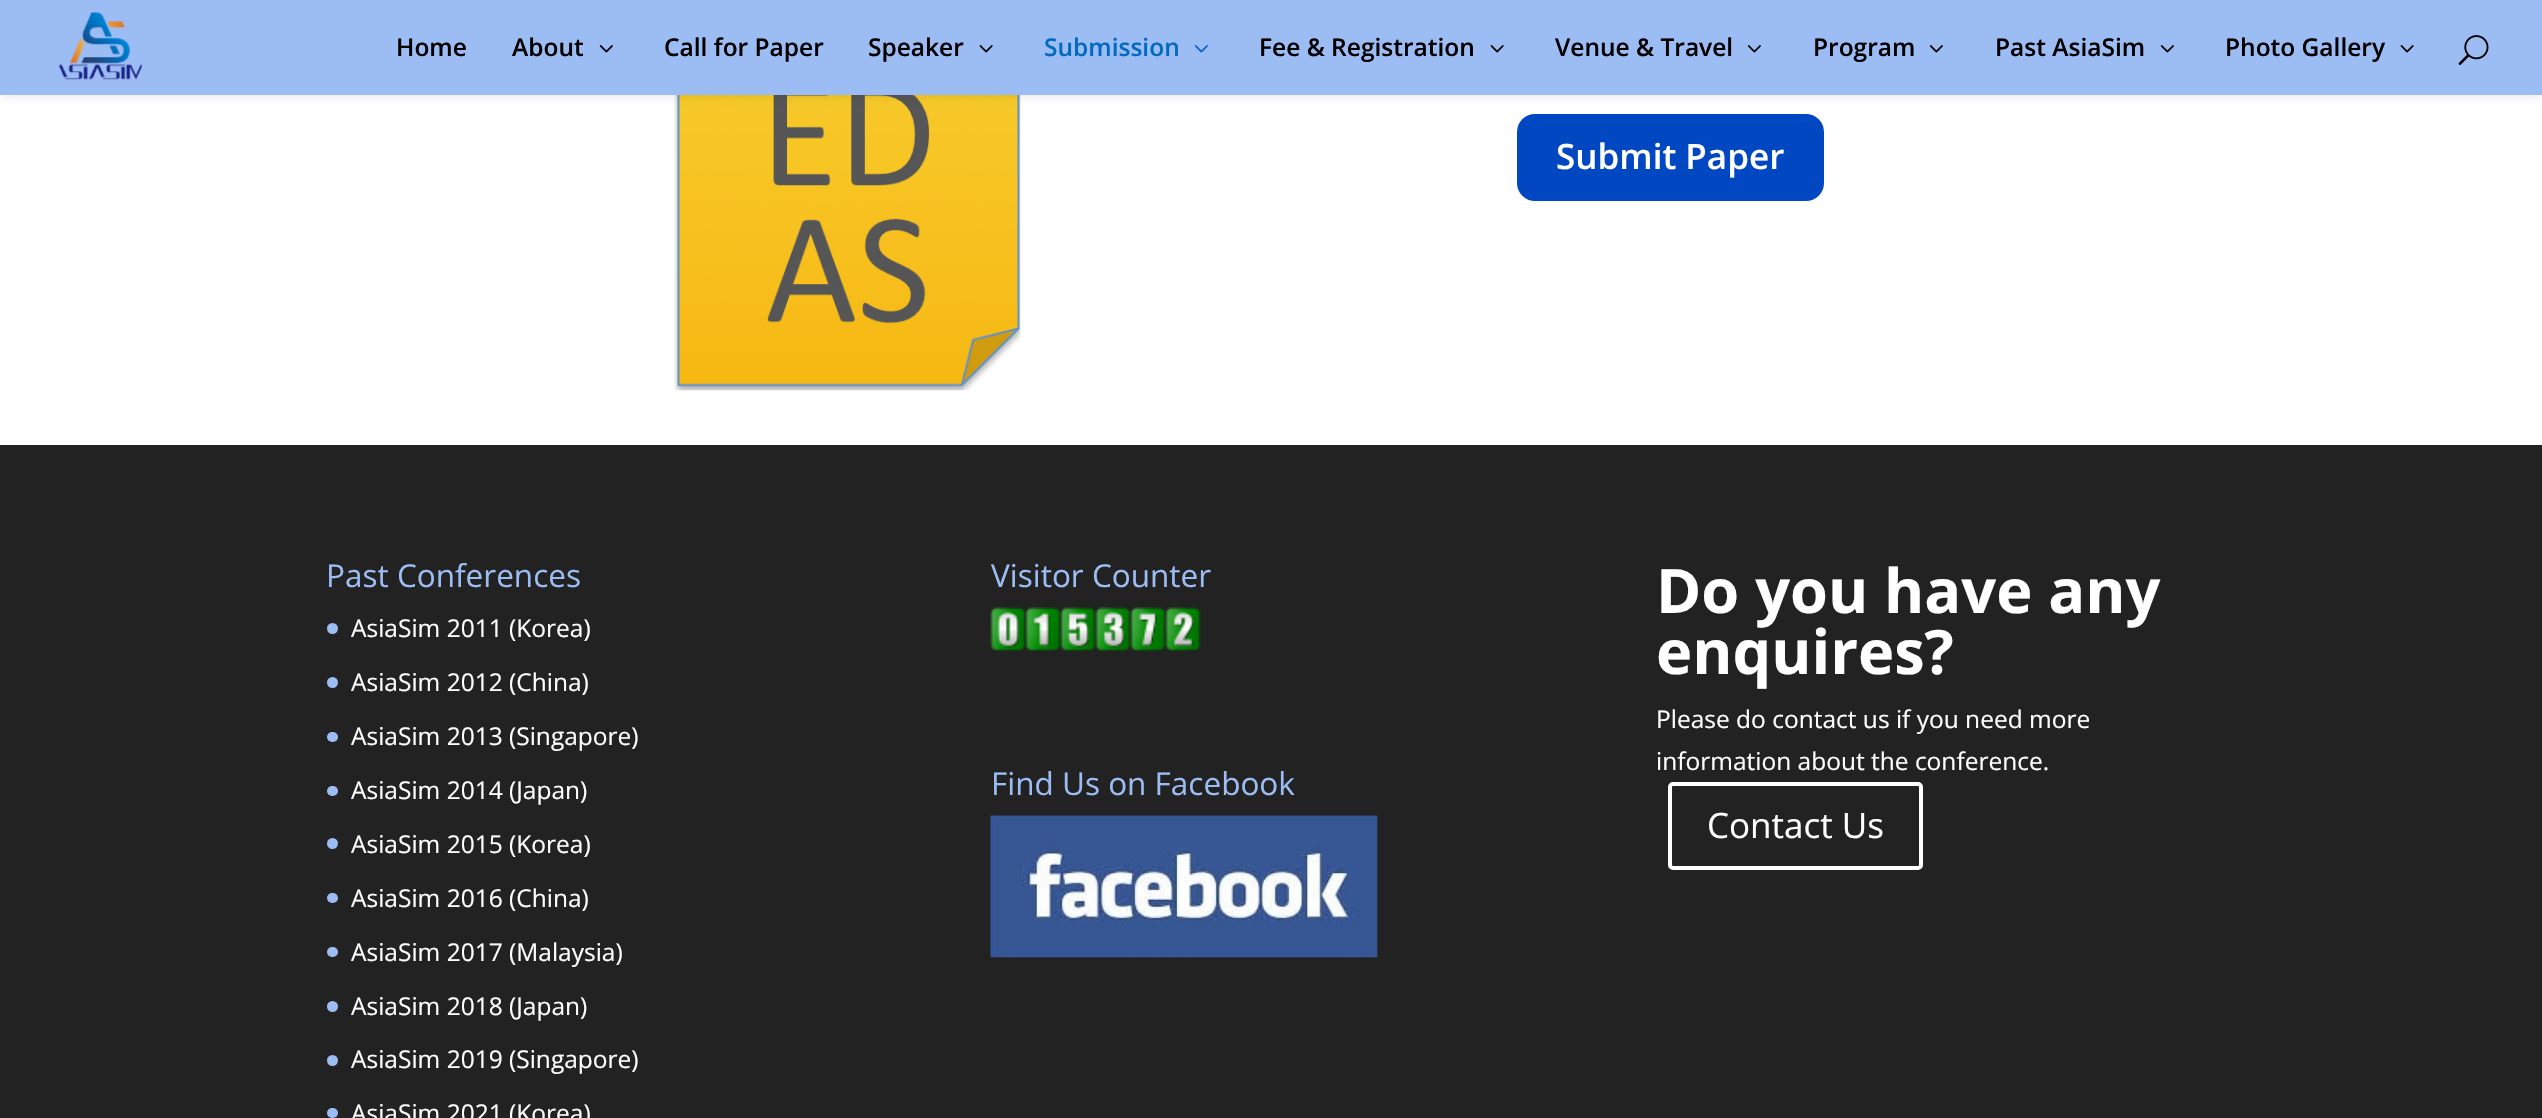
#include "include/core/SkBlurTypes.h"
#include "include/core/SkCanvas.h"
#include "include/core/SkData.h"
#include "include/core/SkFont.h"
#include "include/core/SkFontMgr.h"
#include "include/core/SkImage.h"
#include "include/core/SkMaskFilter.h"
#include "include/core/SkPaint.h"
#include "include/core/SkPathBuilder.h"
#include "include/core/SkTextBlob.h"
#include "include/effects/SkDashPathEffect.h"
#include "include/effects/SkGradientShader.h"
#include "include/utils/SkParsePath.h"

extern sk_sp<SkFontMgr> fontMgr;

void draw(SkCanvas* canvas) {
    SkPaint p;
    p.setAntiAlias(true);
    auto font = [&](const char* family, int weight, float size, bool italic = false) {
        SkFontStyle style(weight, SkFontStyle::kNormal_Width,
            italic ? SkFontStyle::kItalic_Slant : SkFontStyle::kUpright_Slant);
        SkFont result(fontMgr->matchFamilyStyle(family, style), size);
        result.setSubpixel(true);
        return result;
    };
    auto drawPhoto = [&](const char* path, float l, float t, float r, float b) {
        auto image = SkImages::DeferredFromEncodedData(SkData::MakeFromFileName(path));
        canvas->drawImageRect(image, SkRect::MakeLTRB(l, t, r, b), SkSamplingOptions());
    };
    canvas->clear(0xFFFFFFFF);
    drawPhoto("media/6.png", 674, 95, 1021, 391);
    p.setColor(0x1A000000);
    p.setMaskFilter(SkMaskFilter::MakeBlur(kNormal_SkBlurStyle, 6));
    canvas->drawRect(SkRect::MakeLTRB(0, 0, 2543, 95), p);
    p.setMaskFilter(nullptr);
    p.setColor(0xFF9CBCF4);
    canvas->drawRect(SkRect::MakeLTRB(0, 0, 2542, 95), p);
    drawPhoto("media/1.png", 58, 12, 142, 80);
    auto font1 = font("Open Sans", 600, 24.5f);
    p.setColor(0xFF000000);
    canvas->drawString("Home", 396, 56, font1, p);
    canvas->drawString("About", 512, 56, font1, p);
    drawPhoto("media/2.png", 599, 45, 613, 53);
    canvas->drawString("Call for Paper", 664, 56, font1, p);
    canvas->drawString("Speaker", 868, 56, font1, p);
    drawPhoto("media/3.png", 979, 45, 993, 53);
    p.setColor(0xFF006AC1);
    canvas->drawString("Submission", 1044, 56, font1, p);
    drawPhoto("media/4.png", 1194, 45, 1208, 53);
    p.setColor(0xFF000000);
    canvas->drawString("Fee & Registration", 1259, 56, font1, p);
    drawPhoto("media/3.png", 1490, 45, 1504, 53);
    canvas->drawString("Venue & Travel", 1555, 56, font1, p);
    drawPhoto("media/2.png", 1747, 45, 1761, 53);
    canvas->drawString("Program", 1813, 56, font1, p);
    drawPhoto("media/2.png", 1929, 45, 1943, 53);
    canvas->drawString("Past AsiaSim", 1995, 56, font1, p);
    drawPhoto("media/2.png", 2160, 45, 2174, 53);
    canvas->drawString("Photo Gallery", 2225, 56, font1, p);
    drawPhoto("media/3.png", 2400, 45, 2414, 53);
    drawPhoto("media/5.png", 2458, 35, 2489, 65);
    p.setColor(0xFF0047C1);
    canvas->drawRoundRect(SkRect::MakeLTRB(1517, 114, 1824, 201), 18, 18, p);
    auto font2 = font("Open Sans", 600, 35);
    p.setColor(0xFFFFFFFF);
    canvas->drawString("Submit Paper", 1556, 169, font2, p);
    p.setColor(0xFF222222);
    canvas->drawRect(SkRect::MakeLTRB(0, 445, 2542, 1118), p);
    auto font3 = font("Open Sans", 400, 31.5f);
    p.setColor(0xFF9CBCF4);
    canvas->drawString("Past Conferences", 326, 587, font3, p);
    canvas->drawCircle(332.5f, 628.5f, 5.5f, p);
    auto font4 = font("Open Sans", 400, 24.5f);
    p.setColor(0xFFFFFFFF);
    canvas->drawString("AsiaSim 2011 (Korea)", 351, 637, font4, p);
    p.setColor(0xFF9CBCF4);
    canvas->drawCircle(332.5f, 682.5f, 5.5f, p);
    p.setColor(0xFFFFFFFF);
    canvas->drawString("AsiaSim 2012 (China)", 351, 691, font4, p);
    p.setColor(0xFF9CBCF4);
    canvas->drawRoundRect(SkRect::MakeLTRB(327, 732, 338, 742), 5, 5, p);
    p.setColor(0xFFFFFFFF);
    canvas->drawString("AsiaSim 2013 (Singapore)", 351, 745, font4, p);
    p.setColor(0xFF9CBCF4);
    canvas->drawRoundRect(SkRect::MakeLTRB(327, 786, 338, 796), 5, 5, p);
    p.setColor(0xFFFFFFFF);
    canvas->drawString("AsiaSim 2014 (Japan)", 351, 799, font4, p);
    p.setColor(0xFF9CBCF4);
    canvas->drawCircle(332.5f, 843.5f, 5.5f, p);
    p.setColor(0xFFFFFFFF);
    canvas->drawString("AsiaSim 2015 (Korea)", 351, 853, font4, p);
    p.setColor(0xFF9CBCF4);
    canvas->drawRoundRect(SkRect::MakeLTRB(327, 893, 338, 903), 5, 5, p);
    p.setColor(0xFFFFFFFF);
    canvas->drawString("AsiaSim 2016 (China)", 351, 907, font4, p);
    p.setColor(0xFF9CBCF4);
    canvas->drawRoundRect(SkRect::MakeLTRB(327, 947, 338, 957), 5, 5, p);
    p.setColor(0xFFFFFFFF);
    canvas->drawString("AsiaSim 2017 (Malaysia)", 351, 961, font4, p);
    p.setColor(0xFF9CBCF4);
    canvas->drawCircle(332.5f, 1006.5f, 5.5f, p);
    p.setColor(0xFFFFFFFF);
    canvas->drawString("AsiaSim 2018 (Japan)", 351, 1015, font4, p);
    p.setColor(0xFF9CBCF4);
    canvas->drawCircle(332.5f, 1060.5f, 5.5f, p);
    p.setColor(0xFFFFFFFF);
    canvas->drawString("AsiaSim 2019 (Singapore)", 351, 1068, font4, p);
    p.setColor(0xFF9CBCF4);
    canvas->drawRoundRect(SkRect::MakeLTRB(327, 1108, 338, 1118), 5, 5, p);
    p.setColor(0xFFFFFFFF);
    canvas->drawString("AsiaSim 2021 (Korea)", 351, 1122, font4, p);
    p.setColor(0xFF9CBCF4);
    canvas->drawString("Visitor Counter", 991, 587, font3, p);
    drawPhoto("media/7.png", 990, 607, 1201, 651);
    canvas->drawString("Find Us on Facebook", 991, 795, font3, p);
    drawPhoto("media/8.png", 990, 815, 1378, 958);
    auto font5 = font("Open Sans", 700, 61.25f);
    p.setColor(0xFFFFFFFF);
    canvas->drawString("Do you have any", 1656, 613, font5, p);
    canvas->drawString("enquires?", 1656, 674, font5, p);
    canvas->drawString("Please do contact us if you need more", 1656, 728, font4, p);
    canvas->drawString("information about the conference.", 1656, 770, font4, p);
    p.setStyle(SkPaint::kStroke_Style);
    p.setStrokeWidth(4);
    canvas->drawRoundRect(SkRect::MakeLTRB(1670, 784, 1921, 868), 3, 3, p);
    auto font6 = font("Open Sans", 400, 35);
    p.setStyle(SkPaint::kFill_Style);
    canvas->drawString("Contact Us", 1707, 838, font6, p);
}
